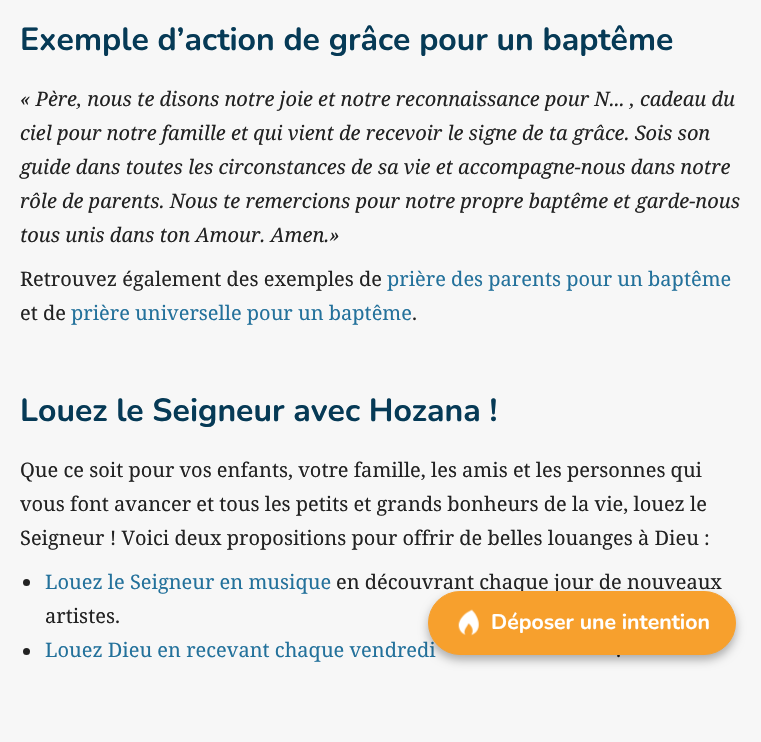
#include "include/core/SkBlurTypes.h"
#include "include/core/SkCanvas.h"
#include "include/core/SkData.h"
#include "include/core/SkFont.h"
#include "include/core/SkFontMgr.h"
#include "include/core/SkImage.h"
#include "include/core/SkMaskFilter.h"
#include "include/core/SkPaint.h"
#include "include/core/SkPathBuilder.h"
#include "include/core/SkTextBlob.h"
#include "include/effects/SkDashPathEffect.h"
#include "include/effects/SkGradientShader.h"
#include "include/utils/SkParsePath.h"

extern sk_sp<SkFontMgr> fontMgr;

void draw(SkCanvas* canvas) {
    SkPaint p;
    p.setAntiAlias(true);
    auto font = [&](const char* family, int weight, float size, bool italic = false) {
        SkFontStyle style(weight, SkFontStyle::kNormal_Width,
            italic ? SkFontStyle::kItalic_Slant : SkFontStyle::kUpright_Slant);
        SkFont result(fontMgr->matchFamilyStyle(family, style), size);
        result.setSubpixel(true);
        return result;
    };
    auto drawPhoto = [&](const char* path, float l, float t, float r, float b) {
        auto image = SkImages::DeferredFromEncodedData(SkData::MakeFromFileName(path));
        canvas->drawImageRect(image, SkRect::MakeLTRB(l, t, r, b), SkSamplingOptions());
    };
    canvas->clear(0xFFF7F7F7);
    auto font1 = font("Nunito", 700, 32);
    p.setColor(0xFF063A56);
    canvas->drawString("Exemple d’action de grâce pour un baptême", 20, 50, font1, p);
    auto font2 = font("Noto Serif", 400, 20, true);
    p.setColor(0xFF222222);
    {
        const struct { const char* s; float x, y; } items[] = {
            {"« Père, nous te disons notre joie et notre reconnaissance pour N... , cadeau du", 20, 106},
            {"ciel pour notre famille et qui vient de recevoir le signe de ta grâce. Sois son", 20, 140},
            {"guide dans toutes les circonstances de sa vie et accompagne-nous dans notre", 20, 174},
            {"rôle de parents. Nous te remercions pour notre propre baptême et garde-nous", 20, 208},
            {"tous unis dans ton Amour. Amen.»", 20, 242},
        };
        for (auto [s, x, y] : items) {
            canvas->drawString(s, x, y, font2, p);
        }
    }
    auto font3 = font("Noto Serif", 400, 20);
    canvas->drawString("Retrouvez également des exemples de", 20, 286, font3, p);
    p.setColor(0xFF23719B);
    canvas->drawString("prière des parents pour un baptême", 387, 286, font3, p);
    p.setColor(0xFF222222);
    canvas->drawString("et de", 20, 320, font3, p);
    p.setColor(0xFF23719B);
    canvas->drawString("prière universelle pour un baptême", 71, 320, font3, p);
    p.setColor(0xFF222222);
    canvas->drawString(".", 412, 320, font3, p);
    p.setColor(0xFF063A56);
    canvas->drawString("Louez le Seigneur avec Hozana !", 20, 421, font1, p);
    p.setColor(0xFF222222);
    {
        const struct { const char* s; float x, y; } items[] = {
            {"Que ce soit pour vos enfants, votre famille, les amis et les personnes qui", 20, 477},
            {"vous font avancer et tous les petits et grands bonheurs de la vie, louez le", 20, 511},
            {"Seigneur ! Voici deux propositions pour offrir de belles louanges à Dieu :", 20, 545},
        };
        for (auto [s, x, y] : items) {
            canvas->drawString(s, x, y, font3, p);
        }
    }
    canvas->drawCircle(26.5f, 582.5f, 3.5f, p);
    p.setColor(0xFF23719B);
    canvas->drawString("Louez le Seigneur en musique", 45, 589, font3, p);
    p.setColor(0xFF222222);
    canvas->drawString("en découvrant chaque jour de nouveaux", 336, 589, font3, p);
    canvas->drawString("artistes.", 45, 623, font3, p);
    canvas->drawCircle(26.5f, 651.5f, 3.5f, p);
    p.setColor(0xFF23719B);
    canvas->drawString("Louez Dieu en recevant chaque vendredi", 45, 657, font3, p);
    p.setColor(0xFF222222);
    canvas->drawString(".", 616, 657, font3, p);
    p.setColor(0x4D000000);
    p.setMaskFilter(SkMaskFilter::MakeBlur(kNormal_SkBlurStyle, 5));
    canvas->drawRoundRect(SkRect::MakeLTRB(428, 596, 736, 660), 32, 32, p);
    p.setMaskFilter(nullptr);
    p.setColor(0xFFF7A02D);
    canvas->drawRoundRect(SkRect::MakeLTRB(428.5f, 591.5f, 735.5f, 654.5f), 31.5f, 31.5f, p);
    p.setStyle(SkPaint::kStroke_Style);
    p.setStrokeWidth(1);
    canvas->drawRoundRect(SkRect::MakeLTRB(428.5f, 591.5f, 735.5f, 654.5f), 31.5f, 31.5f, p);
    drawPhoto("media/1.png", 458, 609, 479, 636);
    auto font4 = font("Nunito", 700, 21.25f);
    p.setStyle(SkPaint::kFill_Style);
    p.setColor(0xFFFFFFFF);
    canvas->drawString("Déposer une intention", 491, 629, font4, p);
}
